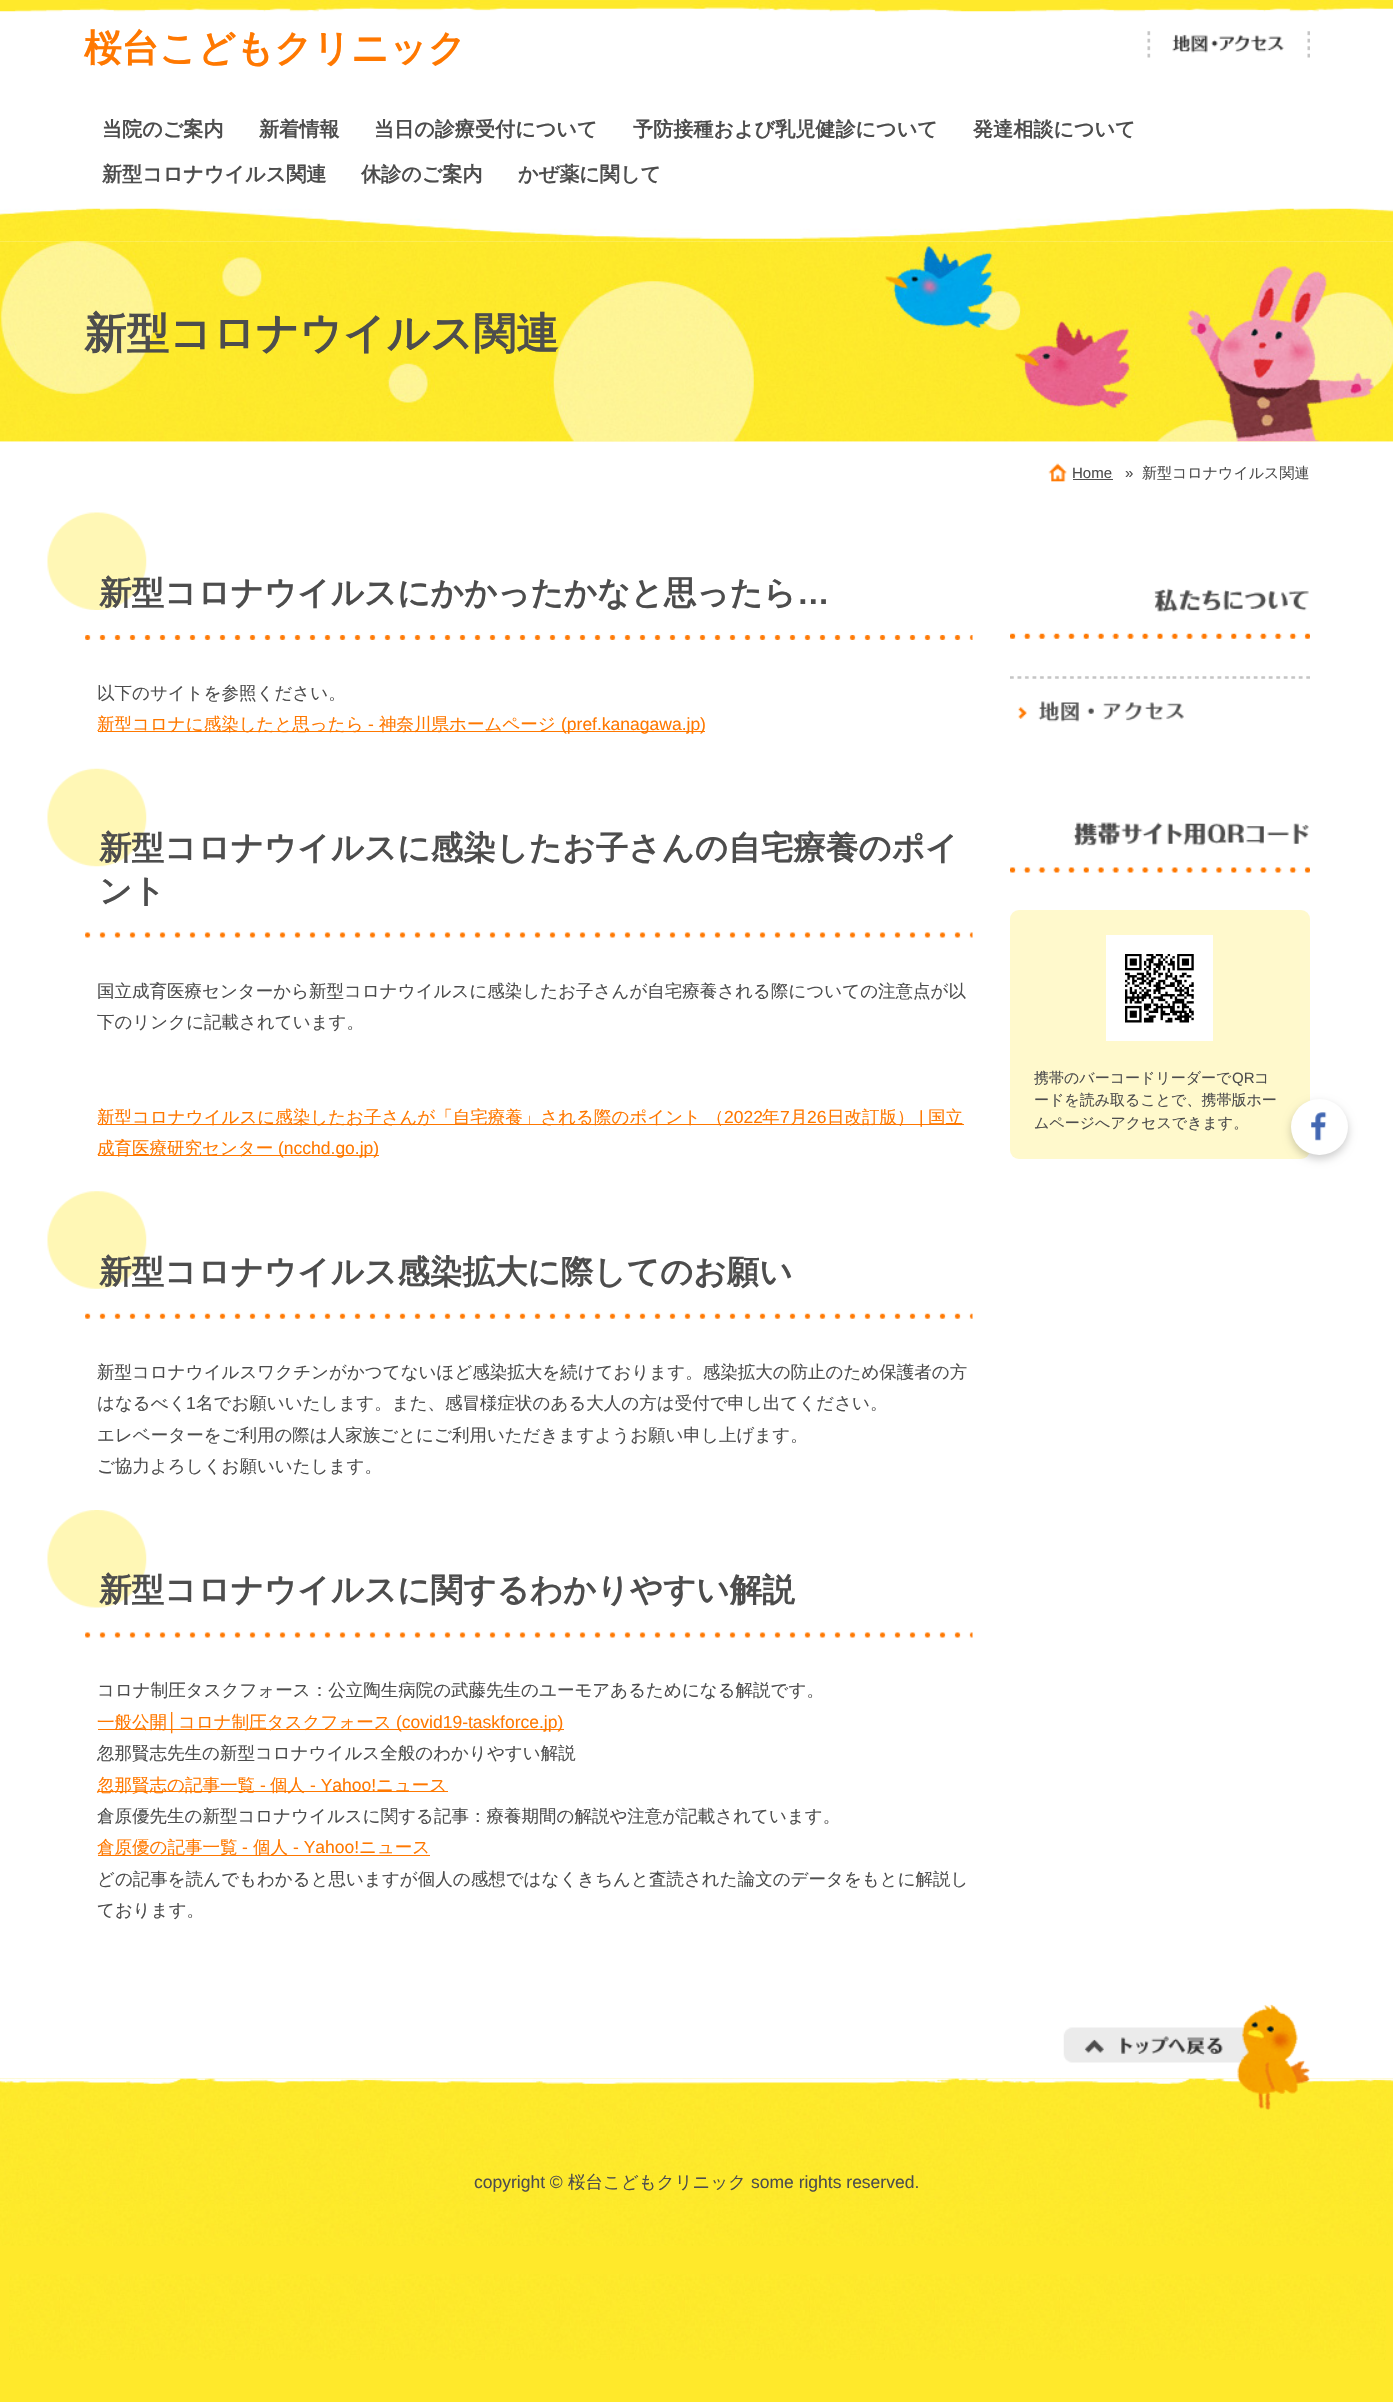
#include "include/core/SkBlurTypes.h"
#include "include/core/SkCanvas.h"
#include "include/core/SkData.h"
#include "include/core/SkFont.h"
#include "include/core/SkFontMgr.h"
#include "include/core/SkImage.h"
#include "include/core/SkMaskFilter.h"
#include "include/core/SkPaint.h"
#include "include/core/SkPathBuilder.h"
#include "include/core/SkTextBlob.h"
#include "include/effects/SkDashPathEffect.h"
#include "include/effects/SkGradientShader.h"
#include "include/utils/SkParsePath.h"

extern sk_sp<SkFontMgr> fontMgr;

void draw(SkCanvas* canvas) {
    SkPaint p;
    p.setAntiAlias(true);
    auto font = [&](const char* family, int weight, float size, bool italic = false) {
        SkFontStyle style(weight, SkFontStyle::kNormal_Width,
            italic ? SkFontStyle::kItalic_Slant : SkFontStyle::kUpright_Slant);
        SkFont result(fontMgr->matchFamilyStyle(family, style), size);
        result.setSubpixel(true);
        return result;
    };
    auto drawPhoto = [&](const char* path, float l, float t, float r, float b) {
        auto image = SkImages::DeferredFromEncodedData(SkData::MakeFromFileName(path));
        canvas->drawImageRect(image, SkRect::MakeLTRB(l, t, r, b), SkSamplingOptions());
    };
    canvas->clear(0xFFFFE92B);
    drawPhoto("media/1.png", 9, 2274, 1386, 2360);
    p.setColor(0xFFFFFFFF);
    canvas->drawRect(SkRect::MakeLTRB(0, 11, 1393, 2079), p);
    drawPhoto("media/2.png", 0, 0, 1393, 12);
    auto font1 = font("WenQuanYi Zen Hei", 700, 37.5f);
    p.setColor(0xFFFF7800);
    canvas->drawString("桜台こどもクリニック", 84, 61, font1, p);
    drawPhoto("media/3.png", 1147, 31, 1310, 58);
    drawPhoto("media/5.png", 0, 441, 1393, 442);
    drawPhoto("media/6.png", 0, 241, 1393, 442);
    drawPhoto("media/4.png", 0, 208, 1393, 242);
    auto font2 = font("WenQuanYi Zen Hei", 700, 20.1f);
    p.setColor(0xFF4D4D4D);
    {
        const struct { const char* s; float x, y; } items[] = {
            {"当院のご案内", 102, 136},
            {"新着情報", 259, 136},
            {"当日の診療受付について", 374, 136},
            {"予防接種および乳児健診について", 633, 136},
            {"発達相談について", 973, 136},
            {"新型コロナウイルス関連", 102, 181},
            {"休診のご案内", 361, 181},
            {"かぜ薬に関して", 518, 181},
        };
        for (auto [s, x, y] : items) {
            canvas->drawString(s, x, y, font2, p);
        }
    }
    auto font3 = font("WenQuanYi Zen Hei", 700, 42.5f);
    canvas->drawString("新型コロナウイルス関連", 84, 348, font3, p);
    drawPhoto("media/7.png", 1048, 463, 1067, 482);
    auto font4 = font("Liberation Sans", 400, 15);
    canvas->drawString("Home", 1072, 478, font4, p);
    canvas->drawRect(SkRect::MakeLTRB(1073, 479, 1113, 480), p);
    canvas->drawString("»", 1125, 478, font4, p);
    auto font5 = font("WenQuanYi Zen Hei", 500, 15);
    canvas->drawString("新型コロナウイルス関連", 1142, 478, font5, p);
    drawPhoto("media/8.png", 85, 635, 973, 640);
    drawPhoto("media/9.png", 47, 512, 147, 610);
    auto font6 = font("WenQuanYi Zen Hei", 700, 32.55f);
    canvas->drawString("新型コロナウイルスにかかったかなと思ったら", 99, 604, font6, p);
    auto font7 = font("Liberation Sans", 700, 32.55f);
    canvas->drawString("…", 797, 604, font7, p);
    auto font8 = font("WenQuanYi Zen Hei", 500, 17.5f);
    canvas->drawString("以下のサイトを参照ください。", 97, 699, font8, p);
    p.setColor(0xFFFF7800);
    canvas->drawRect(SkRect::MakeLTRB(98, 731, 705, 732), p);
    canvas->drawString("新型コロナに感染したと思ったら", 97, 730, font8, p);
    auto font9 = font("Liberation Sans", 400, 17.5f);
    canvas->drawString("-", 368, 730, font9, p);
    canvas->drawString("神奈川県ホームページ", 379, 730, font8, p);
    canvas->drawString("(pref.kanagawa.jp)", 561, 730, font9, p);
    drawPhoto("media/10.png", 85, 932, 973, 938);
    drawPhoto("media/11.png", 47, 768, 147, 867);
    p.setColor(0xFF4D4D4D);
    canvas->drawString("新型コロナウイルスに感染したお子さんの自宅療養のポイ", 99, 859, font6, p);
    canvas->drawString("ント", 99, 902, font6, p);
    canvas->drawString("国立成育医療センターから新型コロナウイルスに感染したお子さんが自宅療養される際についての注意点が以", 97, 997, font8, p);
    canvas->drawString("下のリンクに記載されています。", 97, 1028, font8, p);
    p.setColor(0xFFFF7800);
    canvas->drawRect(SkRect::MakeLTRB(98, 1124, 964, 1125), p);
    canvas->drawString("新型コロナウイルスに感染したお子さんが「自宅療養」される際のポイント （", 97, 1123, font8, p);
    canvas->drawString("2022", 724, 1123, font9, p);
    canvas->drawString("年", 762, 1123, font8, p);
    canvas->drawString("7", 780, 1123, font9, p);
    canvas->drawString("月", 790, 1123, font8, p);
    canvas->drawString("26", 807, 1123, font9, p);
    canvas->drawString("日改訂版）", 827, 1123, font8, p);
    canvas->drawString("|", 919, 1123, font9, p);
    canvas->drawString("国立", 928, 1123, font8, p);
    canvas->drawRect(SkRect::MakeLTRB(98, 1155, 379, 1156), p);
    canvas->drawString("成育医療研究センター", 97, 1154, font8, p);
    canvas->drawString("(ncchd.go.jp)", 278, 1154, font9, p);
    drawPhoto("media/12.png", 85, 1313, 973, 1319);
    drawPhoto("media/13.png", 47, 1191, 147, 1289);
    p.setColor(0xFF4D4D4D);
    canvas->drawString("新型コロナウイルス感染拡大に際してのお願い", 99, 1283, font6, p);
    canvas->drawString("新型コロナウイルスワクチンがかつてないほど感染拡大を続けております。感染拡大の防止のため保護者の方", 97, 1378, font8, p);
    canvas->drawString("はなるべく", 97, 1409, font8, p);
    canvas->drawString("1", 186, 1409, font9, p);
    {
        const struct { const char* s; float x, y; } items[] = {
            {"名でお願いいたします。また、感冒様症状のある大人の方は受付で申し出てください。", 196, 1409},
            {"エレベーターをご利用の際は人家族ごとにご利用いただきますようお願い申し上げます。", 97, 1441},
            {"ご協力よろしくお願いいたします。", 97, 1472},
        };
        for (auto [s, x, y] : items) {
            canvas->drawString(s, x, y, font8, p);
        }
    }
    drawPhoto("media/10.png", 85, 1632, 973, 1638);
    drawPhoto("media/14.png", 47, 1510, 147, 1608);
    canvas->drawString("新型コロナウイルスに関するわかりやすい解説", 99, 1601, font6, p);
    canvas->drawString("コロナ制圧タスクフォース：公立陶生病院の武藤先生のユーモアあるためになる解説です。", 97, 1696, font8, p);
    p.setColor(0xFFFF7800);
    canvas->drawRect(SkRect::MakeLTRB(98, 1729, 564, 1730), p);
    canvas->drawString("一般公開", 97, 1728, font8, p);
    canvas->drawString("│", 167, 1728, font9, p);
    canvas->drawString("コロナ制圧タスクフォース", 178, 1728, font8, p);
    canvas->drawString("(covid19-taskforce.jp)", 396, 1728, font9, p);
    p.setColor(0xFF4D4D4D);
    canvas->drawString("忽那賢志先生の新型コロナウイルス全般のわかりやすい解説", 97, 1759, font8, p);
    p.setColor(0xFFFF7800);
    canvas->drawRect(SkRect::MakeLTRB(98, 1791, 448, 1792), p);
    canvas->drawString("忽那賢志の記事一覧", 97, 1791, font8, p);
    canvas->drawString("-", 260, 1791, font9, p);
    canvas->drawString("個人", 270, 1791, font8, p);
    canvas->drawString("- Yahoo!", 310, 1791, font9, p);
    canvas->drawString("ニュース", 376, 1791, font8, p);
    p.setColor(0xFF4D4D4D);
    canvas->drawString("倉原優先生の新型コロナウイルスに関する記事：療養期間の解説や注意が記載されています。", 97, 1822, font8, p);
    p.setColor(0xFFFF7800);
    canvas->drawRect(SkRect::MakeLTRB(98, 1855, 430, 1856), p);
    canvas->drawString("倉原優の記事一覧", 97, 1853, font8, p);
    canvas->drawString("-", 242, 1853, font9, p);
    canvas->drawString("個人", 253, 1853, font8, p);
    canvas->drawString("- Yahoo!", 293, 1853, font9, p);
    canvas->drawString("ニュース", 359, 1853, font8, p);
    p.setColor(0xFF4D4D4D);
    canvas->drawString("どの記事を読んでもわかると思いますが個人の感想ではなくきちんと査読された論文のデータをもとに解説し", 97, 1885, font8, p);
    canvas->drawString("ております。", 97, 1916, font8, p);
    drawPhoto("media/15.png", 1010, 588, 1310, 639);
    drawPhoto("media/16.png", 1010, 676, 1310, 722);
    drawPhoto("media/17.png", 1010, 822, 1310, 873);
    p.setColor(0xFFFFF9CC);
    canvas->drawRoundRect(SkRect::MakeLTRB(1010, 910, 1310, 1159), 9, 9, p);
    p.setColor(0xFFFFFFFF);
    canvas->drawRect(SkRect::MakeLTRB(1106, 935, 1213, 1041), p);
    drawPhoto("media/18.png", 1125, 954, 1194, 1023);
    p.setColor(0xFF4D4D4D);
    canvas->drawString("携帯のバーコードリーダーで", 1034, 1083, font5, p);
    canvas->drawString("QR", 1232, 1083, font4, p);
    {
        const struct { const char* s; float x, y; } items[] = {
            {"コ", 1254, 1083},
            {"ードを読み取ることで、携帯版ホー", 1034, 1105},
            {"ムページへアクセスできます。", 1034, 1128},
        };
        for (auto [s, x, y] : items) {
            canvas->drawString(s, x, y, font5, p);
        }
    }
    drawPhoto("media/19.png", 0, 2078, 1393, 2246);
    drawPhoto("media/20.png", 0, 2078, 1393, 2085);
    drawPhoto("media/21.png", 1063, 2004, 1310, 2110);
    canvas->drawString("copyright ©", 474, 2188, font9, p);
    canvas->drawString("桜台こどもクリニック", 568, 2188, font8, p);
    canvas->drawString("some rights reserved.", 751, 2188, font9, p);
    p.setColor(0x33000000);
    p.setMaskFilter(SkMaskFilter::MakeBlur(kNormal_SkBlurStyle, 4));
    canvas->drawRoundRect(SkRect::MakeLTRB(1291, 1103, 1348, 1159), 28, 28, p);
    p.setMaskFilter(nullptr);
    p.setColor(0xFFFFFFFF);
    canvas->drawRoundRect(SkRect::MakeLTRB(1291, 1099, 1348, 1155), 28, 28, p);
    drawPhoto("media/22.png", 1311, 1112, 1327, 1141);
}
